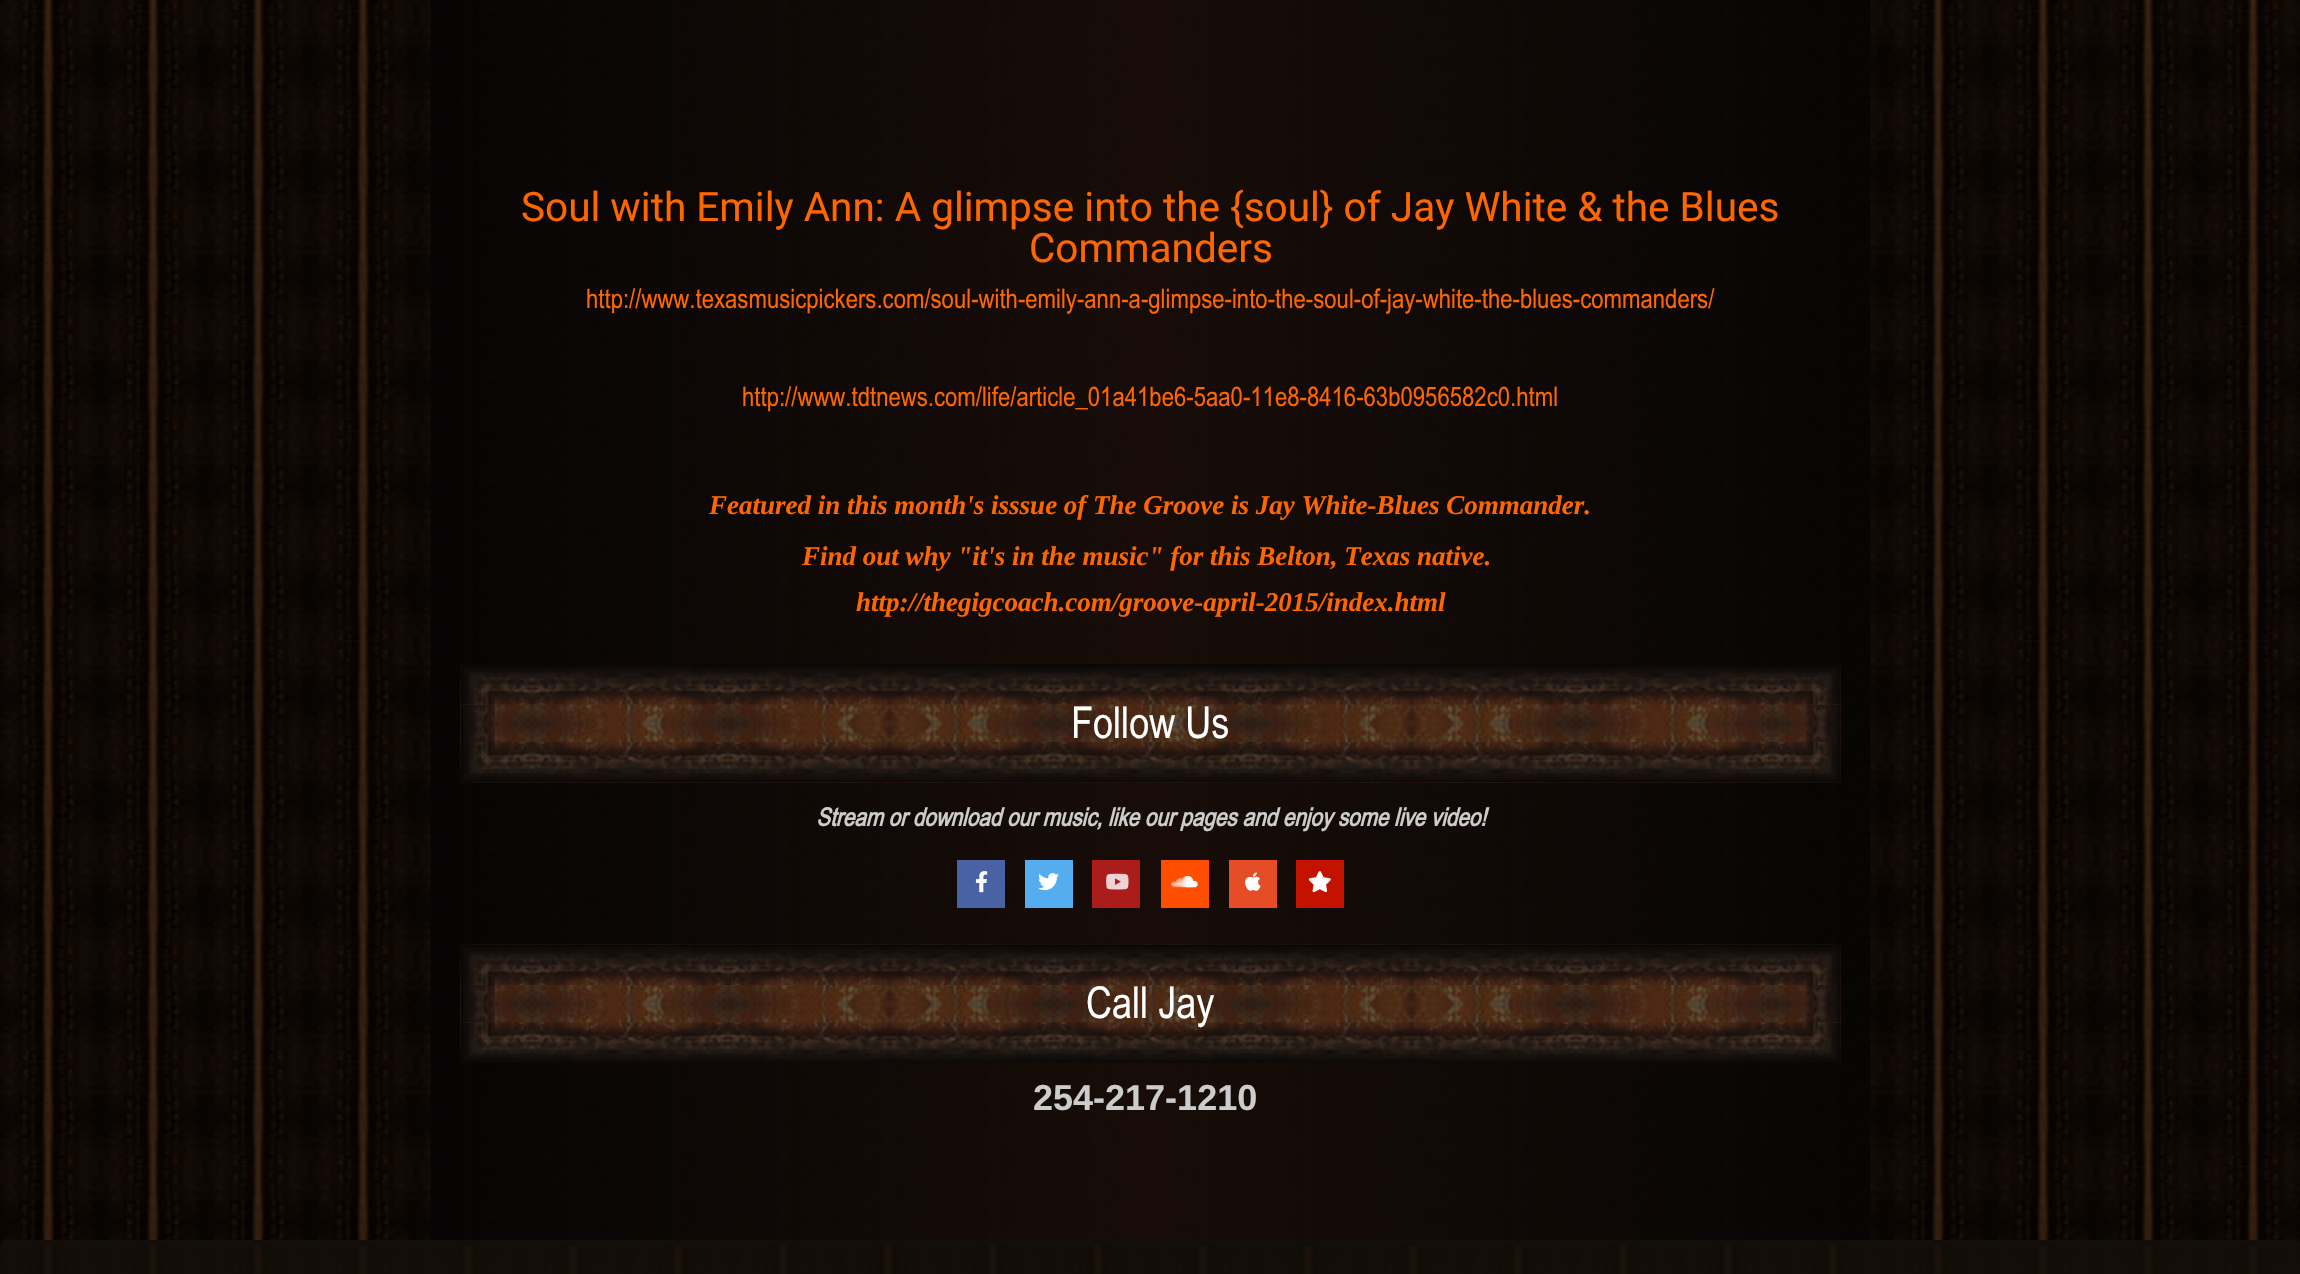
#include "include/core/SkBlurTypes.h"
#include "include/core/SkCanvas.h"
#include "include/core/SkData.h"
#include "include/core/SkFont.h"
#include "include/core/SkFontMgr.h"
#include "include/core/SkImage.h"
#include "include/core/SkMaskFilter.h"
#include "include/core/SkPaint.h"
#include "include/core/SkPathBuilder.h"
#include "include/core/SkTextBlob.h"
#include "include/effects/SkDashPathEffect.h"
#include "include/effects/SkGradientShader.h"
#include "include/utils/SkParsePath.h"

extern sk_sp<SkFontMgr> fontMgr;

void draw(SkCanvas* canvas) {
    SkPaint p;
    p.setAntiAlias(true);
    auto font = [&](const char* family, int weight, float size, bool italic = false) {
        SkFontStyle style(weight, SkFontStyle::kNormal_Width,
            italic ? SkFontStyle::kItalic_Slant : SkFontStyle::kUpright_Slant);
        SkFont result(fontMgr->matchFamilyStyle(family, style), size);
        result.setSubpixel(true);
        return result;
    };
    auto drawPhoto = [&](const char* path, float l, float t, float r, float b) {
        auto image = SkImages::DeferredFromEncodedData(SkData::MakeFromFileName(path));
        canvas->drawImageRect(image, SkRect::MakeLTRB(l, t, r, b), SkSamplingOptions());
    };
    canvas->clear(0xFFFFFFFF);
    drawPhoto("media/1.png", 0, 0, 2300, 1274);
    drawPhoto("media/2.png", 430, 0, 1871, 1240);
    auto font1 = font("Roboto", 400, 40.5f);
    p.setColor(0xFFFF6600);
    canvas->drawString("Soul with Emily Ann: A glimpse into the {soul} of Jay White & the Blues", 521, 221, font1, p);
    canvas->drawString("Commanders", 1029, 262, font1, p);
    auto font2 = font("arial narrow", 400, 27);
    canvas->drawString("http://www.texasmusicpickers.com/soul-with-emily-ann-a-glimpse-into-the-soul-of-jay-white-the-blues-commanders/", 586, 308, font2, p);
    canvas->drawString("http://www.tdtnews.com/life/article_01a41be6-5aa0-11e8-8416-63b0956582c0.html", 742, 406, font2, p);
    auto font3 = font("Liberation Serif", 700, 27, true);
    {
        const struct { const char* s; float x, y; } items[] = {
            {"Featured in this month's isssue of The Groove is Jay White-Blues Commander.", 709, 514},
            {"Find out why \"it's in the music\" for this Belton, Texas native.", 802, 565},
            {"http://thegigcoach.com/groove-april-2015/index.html", 856, 611},
        };
        for (auto [s, x, y] : items) {
            canvas->drawString(s, x, y, font3, p);
        }
    }
    drawPhoto("media/3.png", 460, 664, 1841, 783);
    auto font4 = font("arial narrow", 400, 44);
    p.setColor(0xFFFFFFFF);
    canvas->drawString("Follow Us", 1071, 738, font4, p);
    auto font5 = font("arial narrow", 700, 25.2f, true);
    p.setColor(0xFFCCCCCC);
    canvas->drawString("Stream or download our music, like our pages and enjoy some live video!", 816, 826, font5, p);
    p.setColor(0xFF4862A3);
    canvas->drawRect(SkRect::MakeLTRB(957, 860, 1005, 908), p);
    drawPhoto("media/4.png", 975, 871, 988, 893);
    p.setColor(0xFF55ACEE);
    canvas->drawRect(SkRect::MakeLTRB(1025, 860, 1073, 908), p);
    drawPhoto("media/5.png", 1038, 873, 1059, 891);
    p.setColor(0xCCD02022);
    canvas->drawRect(SkRect::MakeLTRB(1092, 860, 1140, 908), p);
    drawPhoto("media/6.png", 1106, 873, 1129, 890);
    p.setColor(0xFFFF4E00);
    canvas->drawRect(SkRect::MakeLTRB(1161, 860, 1209, 908), p);
    drawPhoto("media/7.png", 1171, 875, 1198, 888);
    p.setColor(0xFFE54D26);
    canvas->drawRect(SkRect::MakeLTRB(1229, 860, 1277, 908), p);
    drawPhoto("media/8.png", 1245, 872, 1261, 891);
    p.setColor(0xFFC41200);
    canvas->drawRect(SkRect::MakeLTRB(1296, 860, 1344, 908), p);
    drawPhoto("media/9.png", 1308, 871, 1331, 893);
    drawPhoto("media/10.png", 460, 944, 1841, 1063);
    p.setColor(0xFFFFFFFF);
    canvas->drawString("Call Jay", 1086, 1018, font4, p);
    auto font6 = font("Liberation Sans", 700, 36);
    p.setColor(0xFFCCCCCC);
    canvas->drawString("254-217-1210", 1033, 1110, font6, p);
    p.setColor(0xCC140E09);
    canvas->drawRoundRect(SkRect::MakeLTRB(0, 1241, 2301, 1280), 6, 6, p);
    p.setColor(0xFF120F0B);
    canvas->drawPath(SkPathBuilder().moveTo(1, 1243).lineTo(4, 1240).lineTo(2297, 1240).lineTo(2300, 1243).lineTo(2300, 1246).lineTo(2, 1246).lineTo(2, 1248).close().detach(), p);
}
